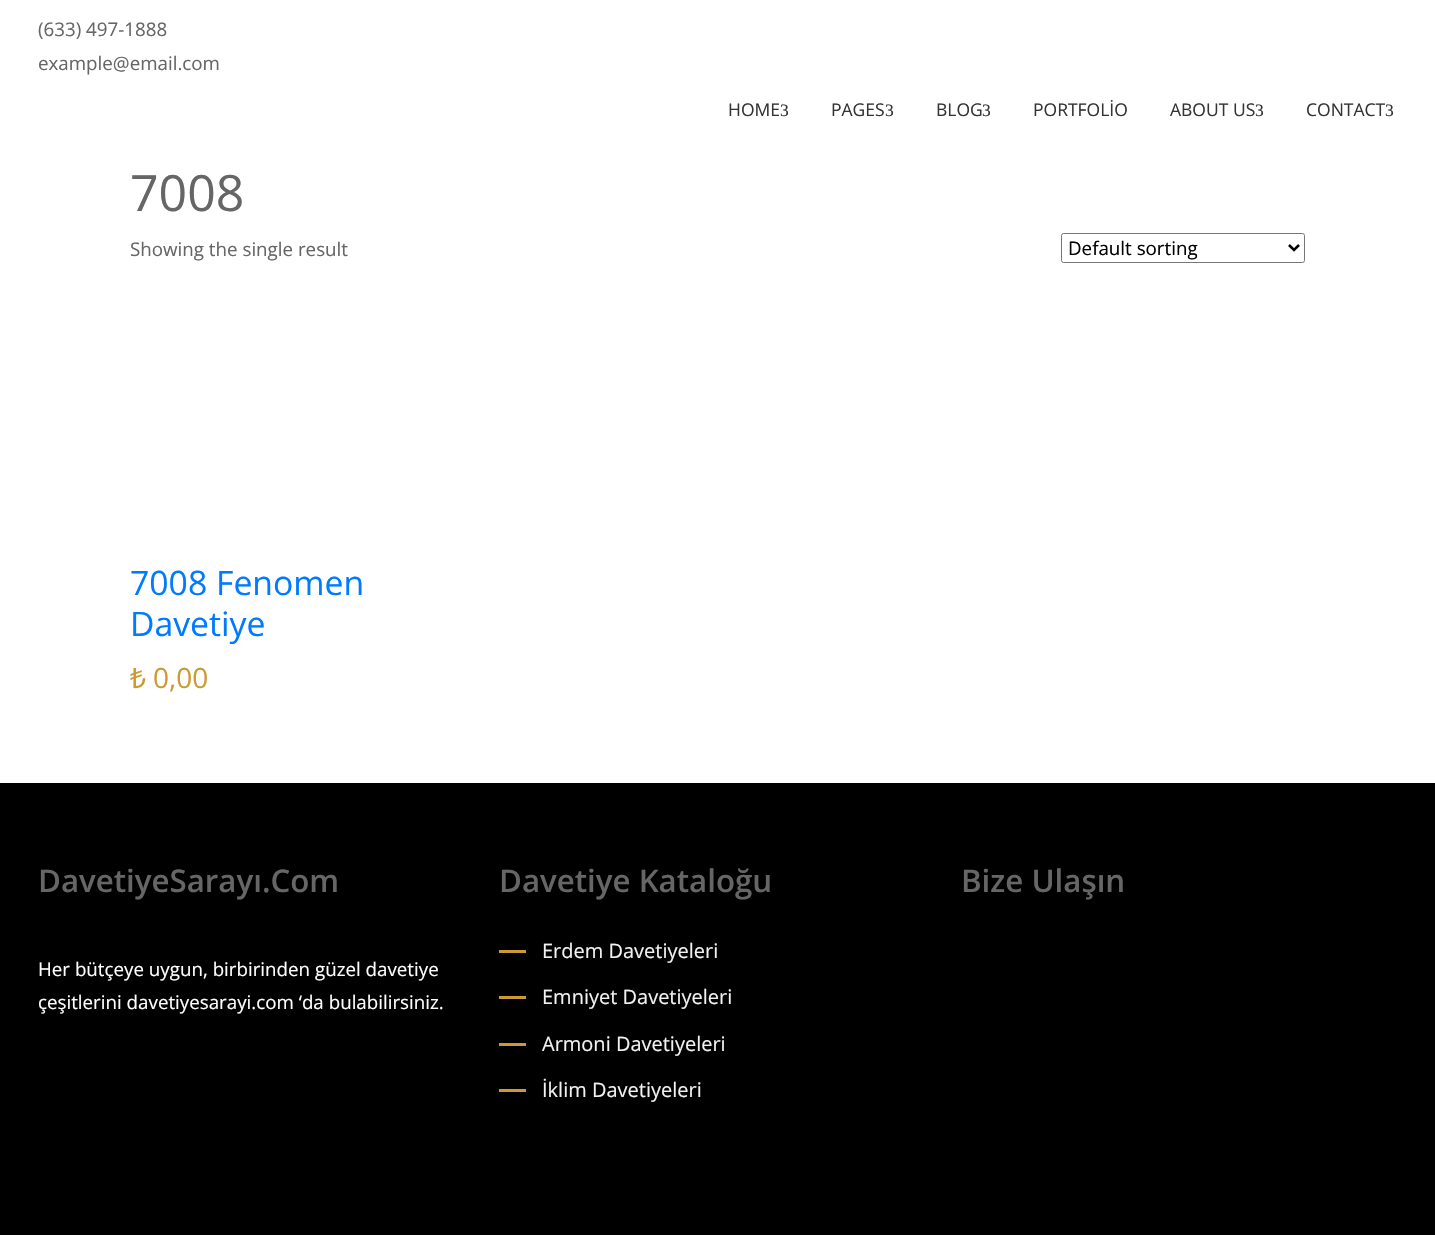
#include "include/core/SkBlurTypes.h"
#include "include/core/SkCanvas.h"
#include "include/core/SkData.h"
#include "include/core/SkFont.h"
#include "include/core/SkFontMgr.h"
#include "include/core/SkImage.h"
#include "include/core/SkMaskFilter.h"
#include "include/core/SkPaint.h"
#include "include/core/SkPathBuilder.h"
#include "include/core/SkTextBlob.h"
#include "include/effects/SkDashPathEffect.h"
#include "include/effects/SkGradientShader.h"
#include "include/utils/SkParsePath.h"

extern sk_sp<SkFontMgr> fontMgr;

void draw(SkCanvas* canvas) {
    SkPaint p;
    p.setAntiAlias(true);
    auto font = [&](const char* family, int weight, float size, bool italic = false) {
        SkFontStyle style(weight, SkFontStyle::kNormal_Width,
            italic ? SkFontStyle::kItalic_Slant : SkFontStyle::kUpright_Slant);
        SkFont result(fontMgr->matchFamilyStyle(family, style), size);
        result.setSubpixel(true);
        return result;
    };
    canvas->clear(0xFFFFFFFF);
    auto font1 = font("Open Sans", 400, 18.75f);
    p.setColor(0xFF666666);
    canvas->drawString("(633) 497-1888", 38, 36, font1, p);
    canvas->drawString("example@email.com", 38, 70, font1, p);
    auto font2 = font("Open Sans", 400, 17.5f);
    p.setColor(0xFF343434);
    canvas->drawString("HOME", 728, 116, font2, p);
    auto font3 = font("Liberation Serif", 400, 17.5f);
    canvas->drawString("3", 780, 116, font3, p);
    canvas->drawString("PAGES", 831, 116, font2, p);
    canvas->drawString("3", 885, 116, font3, p);
    canvas->drawString("BLOG", 936, 116, font2, p);
    canvas->drawString("3", 982, 116, font3, p);
    canvas->drawString("PORTFOLİO", 1033, 116, font2, p);
    canvas->drawString("ABOUT US", 1170, 116, font2, p);
    canvas->drawString("3", 1255, 116, font3, p);
    canvas->drawString("CONTACT", 1306, 116, font2, p);
    canvas->drawString("3", 1385, 116, font3, p);
    auto font4 = font("Open Sans", 400, 50);
    p.setColor(0xFF666666);
    canvas->drawString("7008", 130, 211, font4, p);
    canvas->drawString("Showing the single result", 130, 256, font1, p);
    p.setStyle(SkPaint::kStroke_Style);
    p.setStrokeWidth(1);
    p.setColor(0xFF767676);
    canvas->drawRoundRect(SkRect::MakeLTRB(1061.5f, 233.5f, 1304.5f, 262.5f), 2, 2, p);
    p.setStrokeWidth(2.5f);
    p.setColor(0xFF000000);
    canvas->drawPath(SkPathBuilder().moveTo(1289, 245).lineTo(1294, 250).lineTo(1299, 245).detach(), p);
    p.setStyle(SkPaint::kFill_Style);
    canvas->drawString("Default sorting", 1068, 255, font1, p);
    auto font5 = font("Open Sans", 400, 33.75f);
    p.setColor(0xFF007BFF);
    canvas->drawString("7008 Fenomen", 130, 595, font5, p);
    canvas->drawString("Davetiye", 130, 636, font5, p);
    auto font6 = font("Noto Sans", 400, 28);
    p.setColor(0xFFCC9933);
    canvas->drawString("₺", 130, 688, font6, p);
    auto font7 = font("Open Sans", 400, 28);
    canvas->drawString("0,00", 153, 688, font7, p);
    p.setColor(0xFF000000);
    canvas->drawRect(SkRect::MakeLTRB(0, 783, 1435, 1235), p);
    auto font8 = font("Open Sans", 600, 31.25f);
    p.setColor(0xFF666666);
    canvas->drawString("DavetiyeSarayı.Com", 38, 892, font8, p);
    p.setColor(0xFFFFFFFF);
    canvas->drawString("Her bütçeye uygun, birbirinden güzel davetiye", 38, 976, font1, p);
    canvas->drawString("çeşitlerini davetiyesarayi.com ‘da bulabilirsiniz.", 38, 1009, font1, p);
    p.setColor(0xFF666666);
    canvas->drawString("Davetiye Kataloğu", 499, 892, font8, p);
    p.setColor(0xFFCC9933);
    canvas->drawRect(SkRect::MakeLTRB(499, 950, 526, 953), p);
    auto font9 = font("Open Sans", 400, 20);
    p.setColor(0xFFF2F2F2);
    canvas->drawString("Erdem Davetiyeleri", 542, 958, font9, p);
    p.setColor(0xFFCC9933);
    canvas->drawRect(SkRect::MakeLTRB(499, 996, 526, 999), p);
    p.setColor(0xFFF2F2F2);
    canvas->drawString("Emniyet Davetiyeleri", 542, 1004, font9, p);
    p.setColor(0xFFCC9933);
    canvas->drawRect(SkRect::MakeLTRB(499, 1043, 526, 1046), p);
    p.setColor(0xFFF2F2F2);
    canvas->drawString("Armoni Davetiyeleri", 542, 1051, font9, p);
    p.setColor(0xFFCC9933);
    canvas->drawRect(SkRect::MakeLTRB(499, 1089, 526, 1092), p);
    p.setColor(0xFFF2F2F2);
    canvas->drawString("İklim Davetiyeleri", 542, 1097, font9, p);
    p.setColor(0xFF666666);
    canvas->drawString("Bize Ulaşın", 961, 892, font8, p);
}
